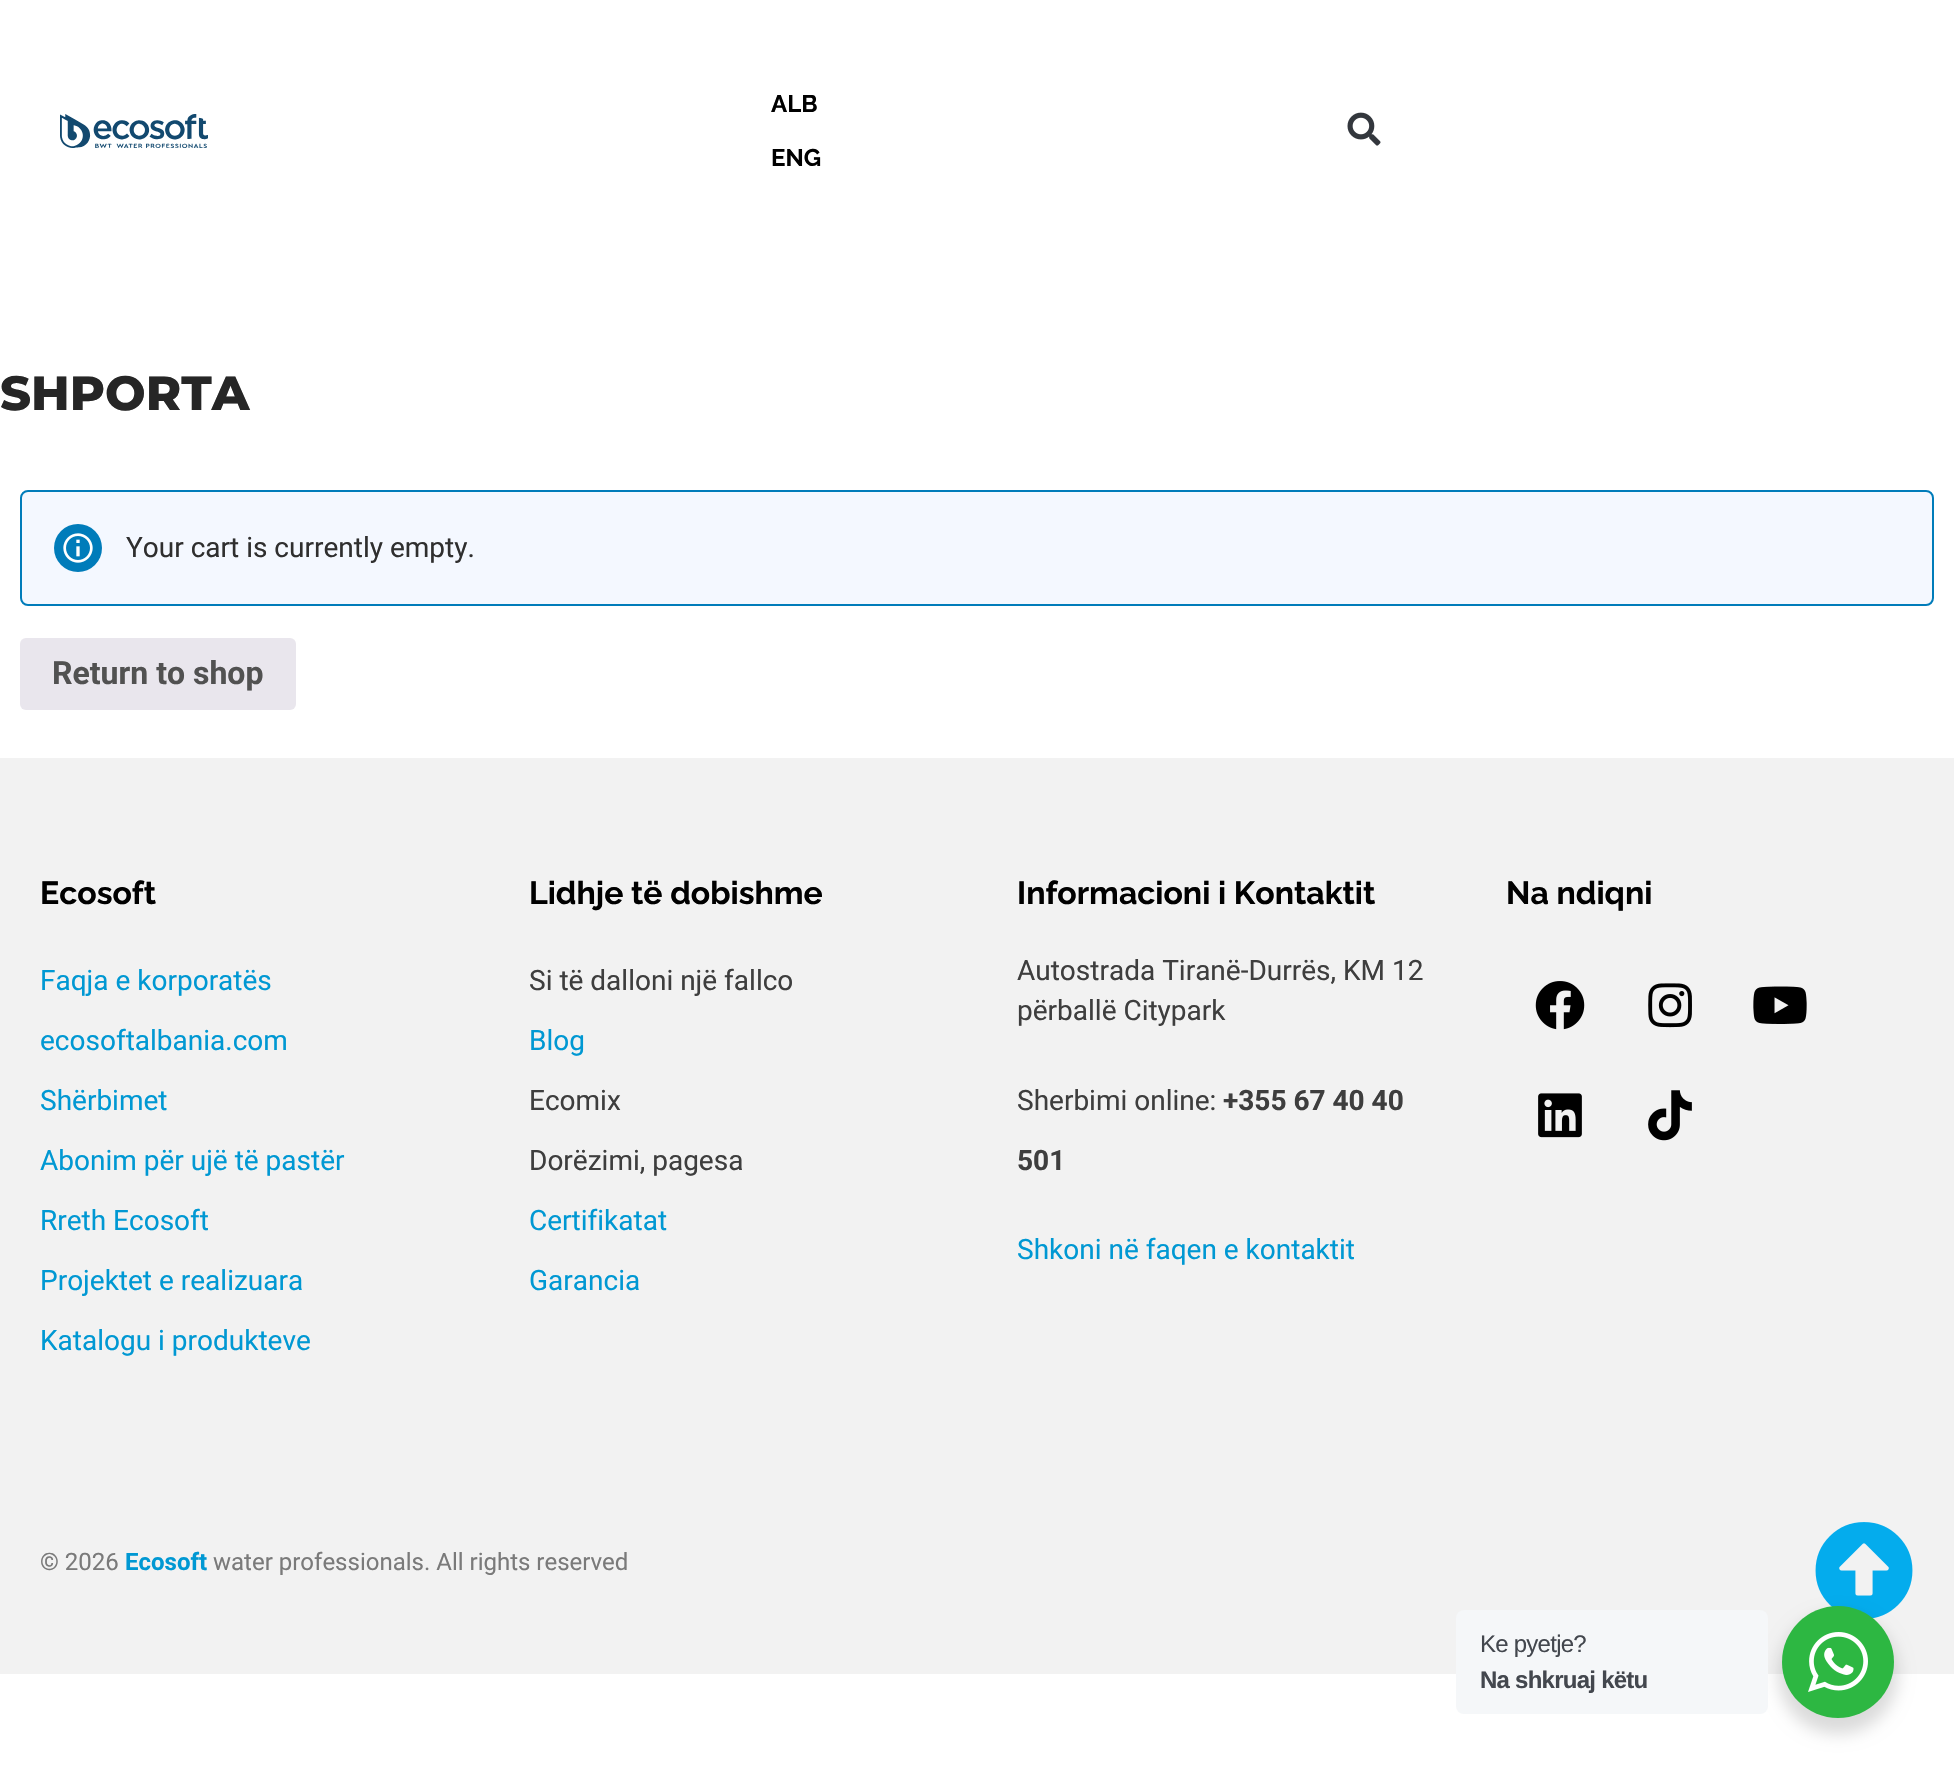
#include "include/core/SkBlurTypes.h"
#include "include/core/SkCanvas.h"
#include "include/core/SkData.h"
#include "include/core/SkFont.h"
#include "include/core/SkFontMgr.h"
#include "include/core/SkImage.h"
#include "include/core/SkMaskFilter.h"
#include "include/core/SkPaint.h"
#include "include/core/SkPathBuilder.h"
#include "include/core/SkTextBlob.h"
#include "include/effects/SkDashPathEffect.h"
#include "include/effects/SkGradientShader.h"
#include "include/utils/SkParsePath.h"

extern sk_sp<SkFontMgr> fontMgr;

void draw(SkCanvas* canvas) {
    SkPaint p;
    p.setAntiAlias(true);
    auto font = [&](const char* family, int weight, float size, bool italic = false) {
        SkFontStyle style(weight, SkFontStyle::kNormal_Width,
            italic ? SkFontStyle::kItalic_Slant : SkFontStyle::kUpright_Slant);
        SkFont result(fontMgr->matchFamilyStyle(family, style), size);
        result.setSubpixel(true);
        return result;
    };
    auto drawTracked = [&](const char* s, float x, float y, const SkFont& font, const SkPaint& ink, float letter, float word) {
        std::vector<SkGlyphID> glyphs(font.countText(s, strlen(s), SkTextEncoding::kUTF8));
        std::vector<float> xs(glyphs.size());
        font.textToGlyphs(s, strlen(s), SkTextEncoding::kUTF8, glyphs);
        font.getXPos(glyphs, xs, x);
        float extra = 0;
        for (size_t i = 0; i < glyphs.size(); i++) {
            xs[i] += extra;
            extra += letter + word * (glyphs[i] == font.unicharToGlyph(' '));
        }
        canvas->drawTextBlob(SkTextBlob::MakeFromPosHGlyphs(glyphs, xs, y, font), 0, 0, ink);
    };
    auto drawPhoto = [&](const char* path, float l, float t, float r, float b) {
        auto image = SkImages::DeferredFromEncodedData(SkData::MakeFromFileName(path));
        canvas->drawImageRect(image, SkRect::MakeLTRB(l, t, r, b), SkSamplingOptions());
    };
    canvas->clear(0xFFFFFFFF);
    drawPhoto("media/1.png", 60, 114, 208, 148);
    auto font1 = font("Raleway", 700, 24);
    p.setColor(0xFF000000);
    canvas->drawString("ALB", 771, 112, font1, p);
    canvas->drawString("ENG", 771, 166, font1, p);
    drawPhoto("media/2.png", 1347, 112, 1381, 146);
    auto font2 = font("Montserrat", 800, 48);
    p.setColor(0xFF262626);
    canvas->drawString("SHPORTA", 0, 410, font2, p);
    p.setColor(0xFFF4F8FF);
    canvas->drawRoundRect(SkRect::MakeLTRB(21, 491, 1933, 605), 7, 7, p);
    p.setStyle(SkPaint::kStroke_Style);
    p.setStrokeWidth(2);
    p.setColor(0xFF007CBA);
    canvas->drawRoundRect(SkRect::MakeLTRB(21, 491, 1933, 605), 7, 7, p);
    p.setStyle(SkPaint::kFill_Style);
    canvas->drawCircle(78, 548, 24, p);
    drawPhoto("media/3.png", 63, 533, 93, 563);
    auto font3 = font("Roboto", 400, 28);
    p.setColor(0xFF2F2F2F);
    canvas->drawString("Your cart is currently empty.", 126, 557, font3, p);
    p.setColor(0xFFE9E6ED);
    canvas->drawRoundRect(SkRect::MakeLTRB(20, 638, 296, 710), 6, 6, p);
    auto font4 = font("Roboto", 700, 32);
    p.setColor(0xFF515151);
    canvas->drawString("Return to shop", 52, 684, font4, p);
    p.setColor(0xFFF2F2F2);
    canvas->drawRect(SkRect::MakeLTRB(0, 758, 1954, 1674), p);
    auto font5 = font("Raleway", 700, 32);
    p.setColor(0xFF000000);
    canvas->drawString("Ecosoft", 40, 904, font5, p);
    p.setColor(0xFF0098D3);
    {
        const struct { const char* s; float x, y; } items[] = {
            {"Faqja e korporatës", 40, 990},
            {"ecosoftalbania.com", 40, 1050},
            {"Shërbimet", 40, 1110},
            {"Abonim për ujë të pastër", 40, 1170},
            {"Rreth Ecosoft", 40, 1230},
            {"Projektet e realizuara", 40, 1290},
            {"Katalogu i produkteve", 40, 1350},
        };
        for (auto [s, x, y] : items) {
            canvas->drawString(s, x, y, font3, p);
        }
    }
    p.setColor(0xFF000000);
    canvas->drawString("Lidhje të dobishme", 529, 904, font5, p);
    p.setColor(0xFF3E3E3E);
    canvas->drawString("Si të dalloni një fallco", 529, 990, font3, p);
    p.setColor(0xFF0098D3);
    canvas->drawString("Blog", 529, 1050, font3, p);
    p.setColor(0xFF3E3E3E);
    canvas->drawString("Ecomix", 529, 1110, font3, p);
    canvas->drawString("Dorëzimi, pagesa", 529, 1170, font3, p);
    p.setColor(0xFF0098D3);
    canvas->drawString("Certifikatat", 529, 1230, font3, p);
    canvas->drawString("Garancia", 529, 1290, font3, p);
    p.setColor(0xFF000000);
    canvas->drawString("Informacioni i Kontaktit", 1017, 904, font5, p);
    p.setColor(0xFF3E3E3E);
    {
        const struct { const char* s; float x, y; } items[] = {
            {"Autostrada Tiranë-Durrës, KM 12", 1017, 980},
            {"përballë Citypark", 1017, 1020},
            {"Sherbimi online:", 1017, 1110},
        };
        for (auto [s, x, y] : items) {
            canvas->drawString(s, x, y, font3, p);
        }
    }
    auto font6 = font("Roboto", 700, 28);
    canvas->drawString("+355 67 40 40", 1223, 1110, font6, p);
    canvas->drawString("501", 1017, 1170, font6, p);
    p.setColor(0xFF0098D3);
    canvas->drawString("Shkoni në faqen e kontaktit", 1017, 1259, font3, p);
    p.setColor(0xFF000000);
    canvas->drawString("Na ndiqni", 1506, 904, font5, p);
    drawPhoto("media/4.png", 1535, 981, 1585, 1030);
    drawPhoto("media/5.png", 1648, 983, 1692, 1028);
    drawPhoto("media/6.png", 1753, 986, 1807, 1024);
    drawPhoto("media/7.png", 1538, 1093, 1582, 1138);
    drawPhoto("media/8.png", 1648, 1090, 1692, 1141);
    auto font7 = font("Roboto", 400, 24);
    p.setColor(0xFF7A7A7A);
    canvas->drawString("© 2026", 40, 1570, font7, p);
    auto font8 = font("Roboto", 700, 24);
    p.setColor(0xFF0098D3);
    canvas->drawString("Ecosoft", 125, 1570, font8, p);
    p.setColor(0xFF7A7A7A);
    canvas->drawString("water professionals. All rights reserved", 213, 1570, font7, p);
    drawPhoto("media/9.png", 1815, 1522, 1913, 1619);
    p.setColor(0x24000000);
    p.setMaskFilter(SkMaskFilter::MakeBlur(kNormal_SkBlurStyle, 8));
    canvas->drawRoundRect(SkRect::MakeLTRB(1778, 1614, 1898, 1734), 60, 60, p);
    p.setMaskFilter(nullptr);
    p.setColor(0xFFF5F7F9);
    canvas->drawRoundRect(SkRect::MakeLTRB(1456, 1610, 1768, 1714), 8, 8, p);
    auto font9 = font("Liberation Sans", 400, 24);
    p.setColor(0xFF43474E);
    drawTracked("Ke pyetje?", 1480, 1652, font9, p, -0.75f, 0);
    auto font10 = font("Liberation Sans", 700, 24);
    drawTracked("Na shkruaj këtu", 1480, 1688, font10, p, -0.75f, 0);
    p.setColor(0xFF2DB742);
    canvas->drawCircle(1838, 1662, 56, p);
    drawPhoto("media/10.png", 1808, 1632, 1868, 1692);
}
